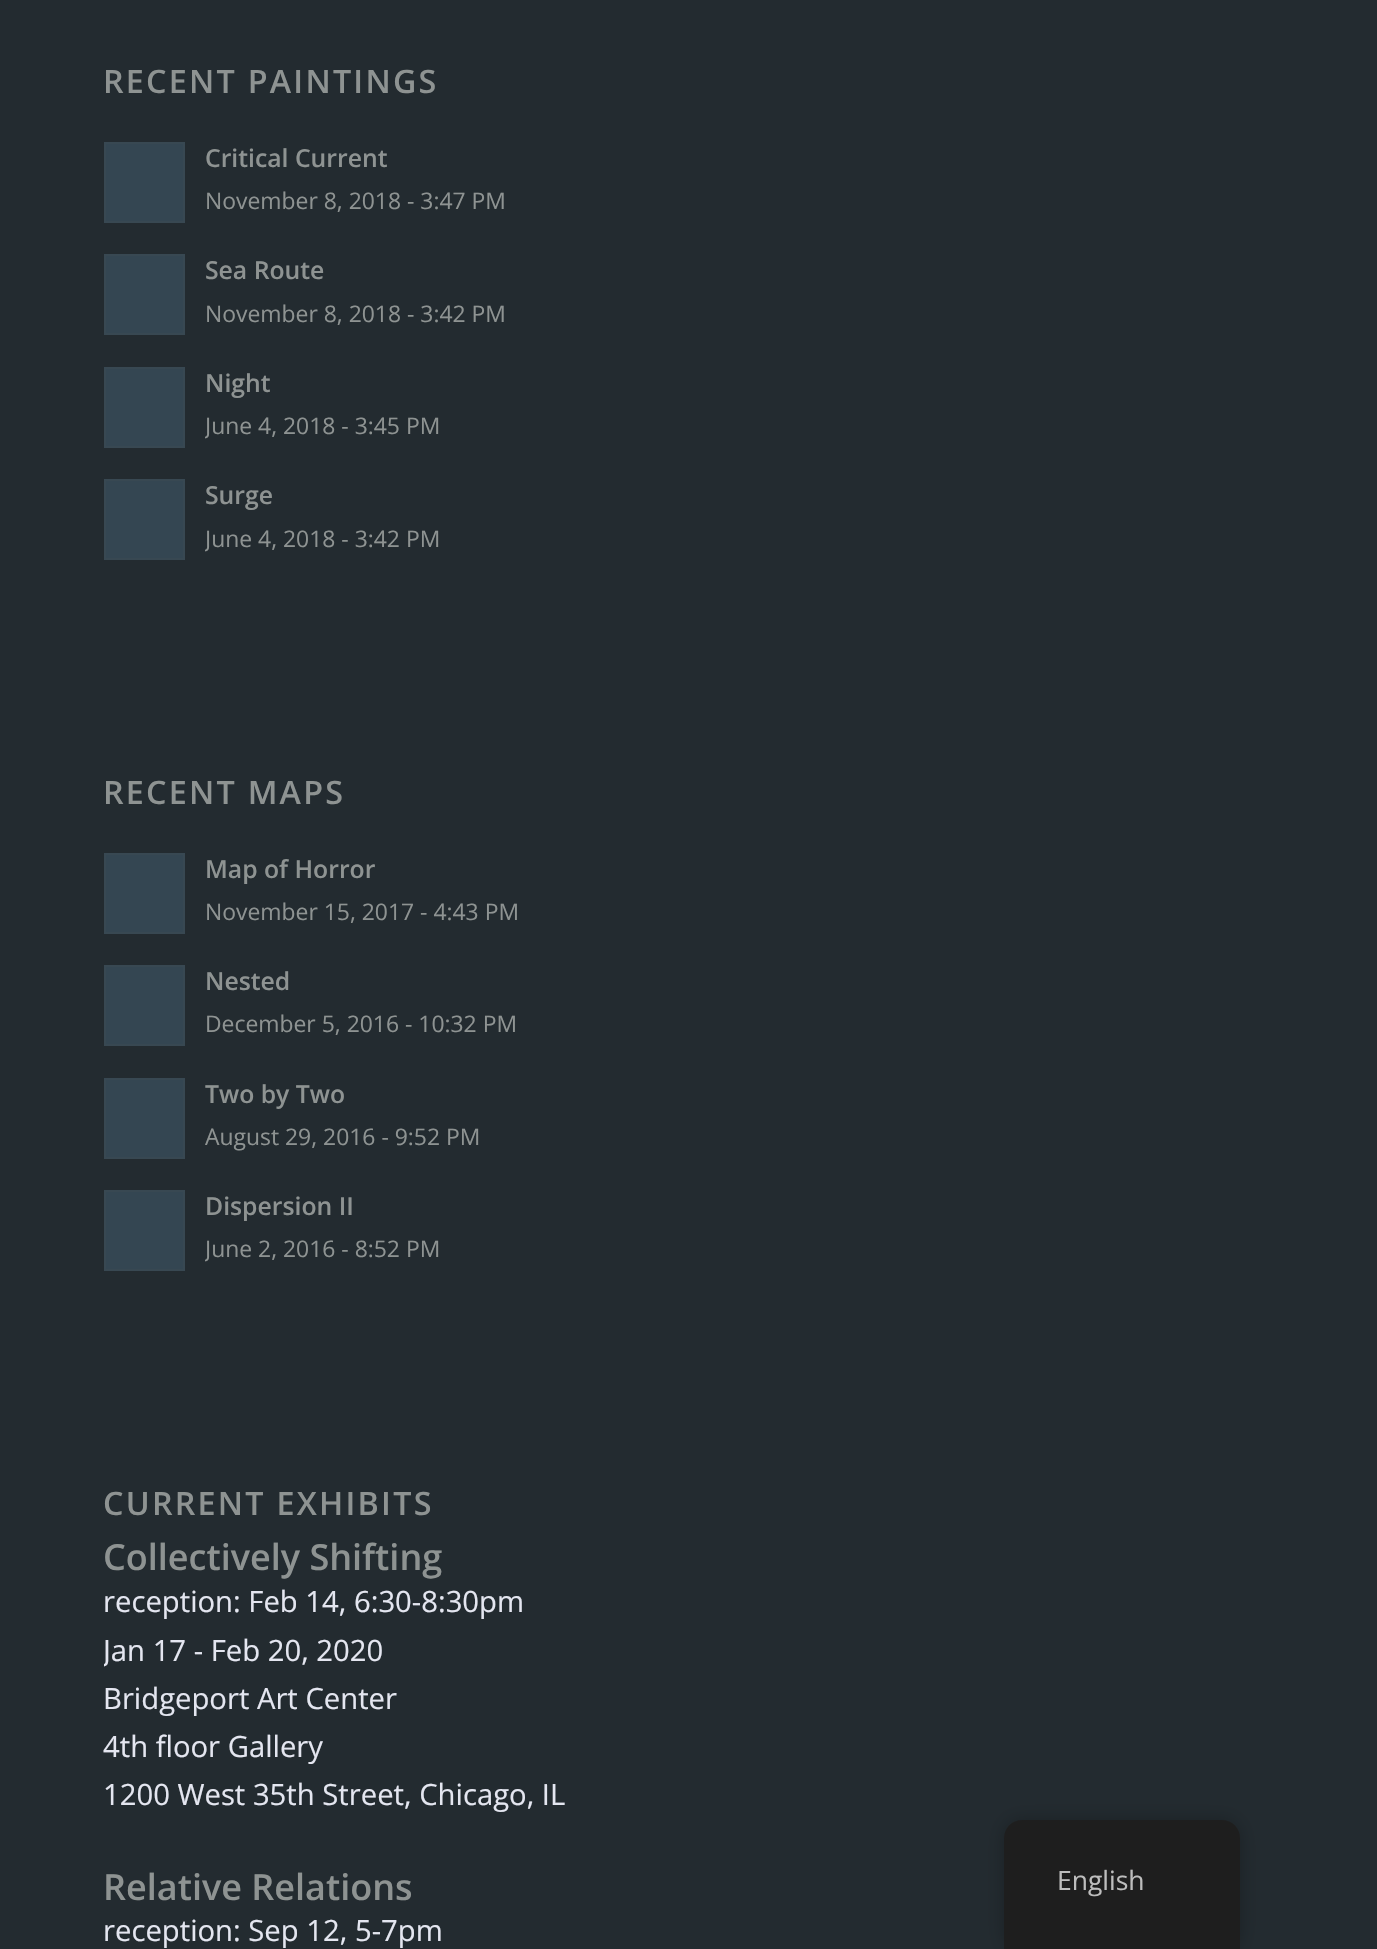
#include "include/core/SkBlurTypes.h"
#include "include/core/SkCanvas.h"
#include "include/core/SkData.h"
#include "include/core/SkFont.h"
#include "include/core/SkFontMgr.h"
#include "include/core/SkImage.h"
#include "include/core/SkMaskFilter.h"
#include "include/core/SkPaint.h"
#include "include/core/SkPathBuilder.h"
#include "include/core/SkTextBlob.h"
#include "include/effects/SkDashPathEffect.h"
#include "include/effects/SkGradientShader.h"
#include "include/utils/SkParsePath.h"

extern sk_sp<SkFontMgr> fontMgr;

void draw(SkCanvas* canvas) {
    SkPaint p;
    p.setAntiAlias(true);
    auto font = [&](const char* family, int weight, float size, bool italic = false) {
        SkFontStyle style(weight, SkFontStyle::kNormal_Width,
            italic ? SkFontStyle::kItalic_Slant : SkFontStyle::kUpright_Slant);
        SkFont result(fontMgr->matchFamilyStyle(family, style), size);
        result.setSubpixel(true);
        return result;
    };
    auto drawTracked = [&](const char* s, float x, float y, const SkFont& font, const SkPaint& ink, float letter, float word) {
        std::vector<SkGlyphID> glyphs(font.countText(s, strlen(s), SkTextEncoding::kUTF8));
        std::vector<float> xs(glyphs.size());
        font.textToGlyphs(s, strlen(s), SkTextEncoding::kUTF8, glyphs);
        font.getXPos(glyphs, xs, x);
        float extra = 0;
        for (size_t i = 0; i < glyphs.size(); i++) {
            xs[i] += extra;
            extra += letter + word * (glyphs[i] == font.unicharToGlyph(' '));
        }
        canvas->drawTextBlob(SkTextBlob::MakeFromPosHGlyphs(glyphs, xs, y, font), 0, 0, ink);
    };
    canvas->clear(0xFF232B30);
    auto font1 = font("Open Sans", 600, 32.25f);
    p.setColor(0xFF8E9392);
    drawTracked("RECENT PAINTINGS", 103, 93, font1, p, 2.25f, 0);
    p.setColor(0xFF344652);
    canvas->drawRect(SkRect::MakeLTRB(105, 143, 184, 222), p);
    p.setStyle(SkPaint::kStroke_Style);
    p.setStrokeWidth(2);
    p.setColor(0xFF384852);
    canvas->drawRect(SkRect::MakeLTRB(105, 143, 184, 222), p);
    auto font2 = font("Open Sans", 600, 24.75f);
    p.setStyle(SkPaint::kFill_Style);
    p.setColor(0xFF8E9392);
    canvas->drawString("Critical Current", 205, 167, font2, p);
    auto font3 = font("Open Sans", 400, 22.9f);
    canvas->drawString("November 8, 2018 - 3:47 PM", 205, 209, font3, p);
    p.setColor(0xFF344652);
    canvas->drawRect(SkRect::MakeLTRB(105, 255, 184, 334), p);
    p.setStyle(SkPaint::kStroke_Style);
    p.setColor(0xFF384852);
    canvas->drawRect(SkRect::MakeLTRB(105, 255, 184, 334), p);
    p.setStyle(SkPaint::kFill_Style);
    p.setColor(0xFF8E9392);
    canvas->drawString("Sea Route", 205, 279, font2, p);
    canvas->drawString("November 8, 2018 - 3:42 PM", 205, 322, font3, p);
    p.setColor(0xFF344652);
    canvas->drawRect(SkRect::MakeLTRB(105, 368, 184, 447), p);
    p.setStyle(SkPaint::kStroke_Style);
    p.setColor(0xFF384852);
    canvas->drawRect(SkRect::MakeLTRB(105, 368, 184, 447), p);
    p.setStyle(SkPaint::kFill_Style);
    p.setColor(0xFF8E9392);
    canvas->drawString("Night", 205, 392, font2, p);
    canvas->save();
    canvas->clipRect(SkRect::MakeLTRB(205, 362, 1274, 448));
    canvas->drawString("June 4, 2018 - 3:45 PM", 205, 434, font3, p);
    canvas->restore();
    p.setColor(0xFF344652);
    canvas->drawRect(SkRect::MakeLTRB(105, 480, 184, 559), p);
    p.setStyle(SkPaint::kStroke_Style);
    p.setColor(0xFF384852);
    canvas->drawRect(SkRect::MakeLTRB(105, 480, 184, 559), p);
    p.setStyle(SkPaint::kFill_Style);
    p.setColor(0xFF8E9392);
    canvas->drawString("Surge", 205, 504, font2, p);
    canvas->save();
    canvas->clipRect(SkRect::MakeLTRB(205, 475, 1274, 560));
    canvas->drawString("June 4, 2018 - 3:42 PM", 205, 547, font3, p);
    canvas->restore();
    drawTracked("RECENT MAPS", 103, 804, font1, p, 2.25f, 0);
    p.setColor(0xFF344652);
    canvas->drawRect(SkRect::MakeLTRB(105, 854, 184, 933), p);
    p.setStyle(SkPaint::kStroke_Style);
    p.setColor(0xFF384852);
    canvas->drawRect(SkRect::MakeLTRB(105, 854, 184, 933), p);
    p.setStyle(SkPaint::kFill_Style);
    p.setColor(0xFF8E9392);
    canvas->drawString("Map of Horror", 205, 878, font2, p);
    canvas->drawString("November 15, 2017 - 4:43 PM", 205, 920, font3, p);
    p.setColor(0xFF344652);
    canvas->drawRect(SkRect::MakeLTRB(105, 966, 184, 1045), p);
    p.setStyle(SkPaint::kStroke_Style);
    p.setColor(0xFF384852);
    canvas->drawRect(SkRect::MakeLTRB(105, 966, 184, 1045), p);
    p.setStyle(SkPaint::kFill_Style);
    p.setColor(0xFF8E9392);
    canvas->drawString("Nested", 205, 990, font2, p);
    canvas->drawString("December 5, 2016 - 10:32 PM", 205, 1032, font3, p);
    p.setColor(0xFF344652);
    canvas->drawRect(SkRect::MakeLTRB(105, 1079, 184, 1158), p);
    p.setStyle(SkPaint::kStroke_Style);
    p.setColor(0xFF384852);
    canvas->drawRect(SkRect::MakeLTRB(105, 1079, 184, 1158), p);
    canvas->save();
    canvas->clipRect(SkRect::MakeLTRB(205, 1073, 1274, 1159));
    p.setStyle(SkPaint::kFill_Style);
    p.setColor(0xFF8E9392);
    canvas->drawString("Two by Two", 205, 1103, font2, p);
    canvas->restore();
    canvas->drawString("August 29, 2016 - 9:52 PM", 205, 1145, font3, p);
    p.setColor(0xFF344652);
    canvas->drawRect(SkRect::MakeLTRB(105, 1191, 184, 1270), p);
    p.setStyle(SkPaint::kStroke_Style);
    p.setColor(0xFF384852);
    canvas->drawRect(SkRect::MakeLTRB(105, 1191, 184, 1270), p);
    p.setStyle(SkPaint::kFill_Style);
    p.setColor(0xFF8E9392);
    canvas->drawString("Dispersion II", 205, 1215, font2, p);
    canvas->save();
    canvas->clipRect(SkRect::MakeLTRB(205, 1186, 1274, 1271));
    canvas->drawString("June 2, 2016 - 8:52 PM", 205, 1257, font3, p);
    canvas->restore();
    drawTracked("CURRENT EXHIBITS", 103, 1515, font1, p, 2.25f, 0);
    auto font4 = font("Open Sans", 600, 36);
    canvas->drawString("Collectively Shifting", 103, 1570, font4, p);
    auto font5 = font("Open Sans", 400, 29.25f);
    p.setColor(0xFFE4E6F0);
    canvas->drawString("reception: Feb 14, 6:30-8:30pm", 103, 1612, font5, p);
    canvas->save();
    canvas->clipRect(SkRect::MakeLTRB(104, 1458, 1274, 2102));
    canvas->drawString("Jan 17 - Feb 20, 2020", 103, 1661, font5, p);
    canvas->restore();
    {
        const struct { const char* s; float x, y; } items[] = {
            {"Bridgeport Art Center", 103, 1709},
            {"4th floor Gallery", 103, 1757},
            {"1200 West 35th Street, Chicago, IL", 103, 1805},
        };
        for (auto [s, x, y] : items) {
            canvas->drawString(s, x, y, font5, p);
        }
    }
    p.setColor(0xFF8E9392);
    canvas->drawString("Relative Relations", 103, 1900, font4, p);
    p.setColor(0xFFE4E6F0);
    canvas->drawString("reception: Sep 12, 5-7pm", 103, 1941, font5, p);
    p.setColor(0x40000000);
    p.setMaskFilter(SkMaskFilter::MakeBlur(kNormal_SkBlurStyle, 9));
    canvas->drawRoundRect(SkRect::MakeLTRB(1004, 1820, 1240, 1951), 18, 18, p);
    p.setMaskFilter(nullptr);
    p.setColor(0xFF1E1E1E);
    canvas->drawPath(SkPathBuilder().moveTo(1022, 1820).lineTo(1222, 1820).cubicTo(1232, 1820, 1240, 1828, 1240, 1838).lineTo(1240, 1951).lineTo(1004, 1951).lineTo(1004, 1838).cubicTo(1004, 1828, 1012, 1820, 1022, 1820).close().detach(), p);
    auto font6 = font("Open Sans", 400, 26.5f);
    p.setColor(0xFFBDBDBD);
    canvas->drawString("English", 1057, 1890, font6, p);
}
